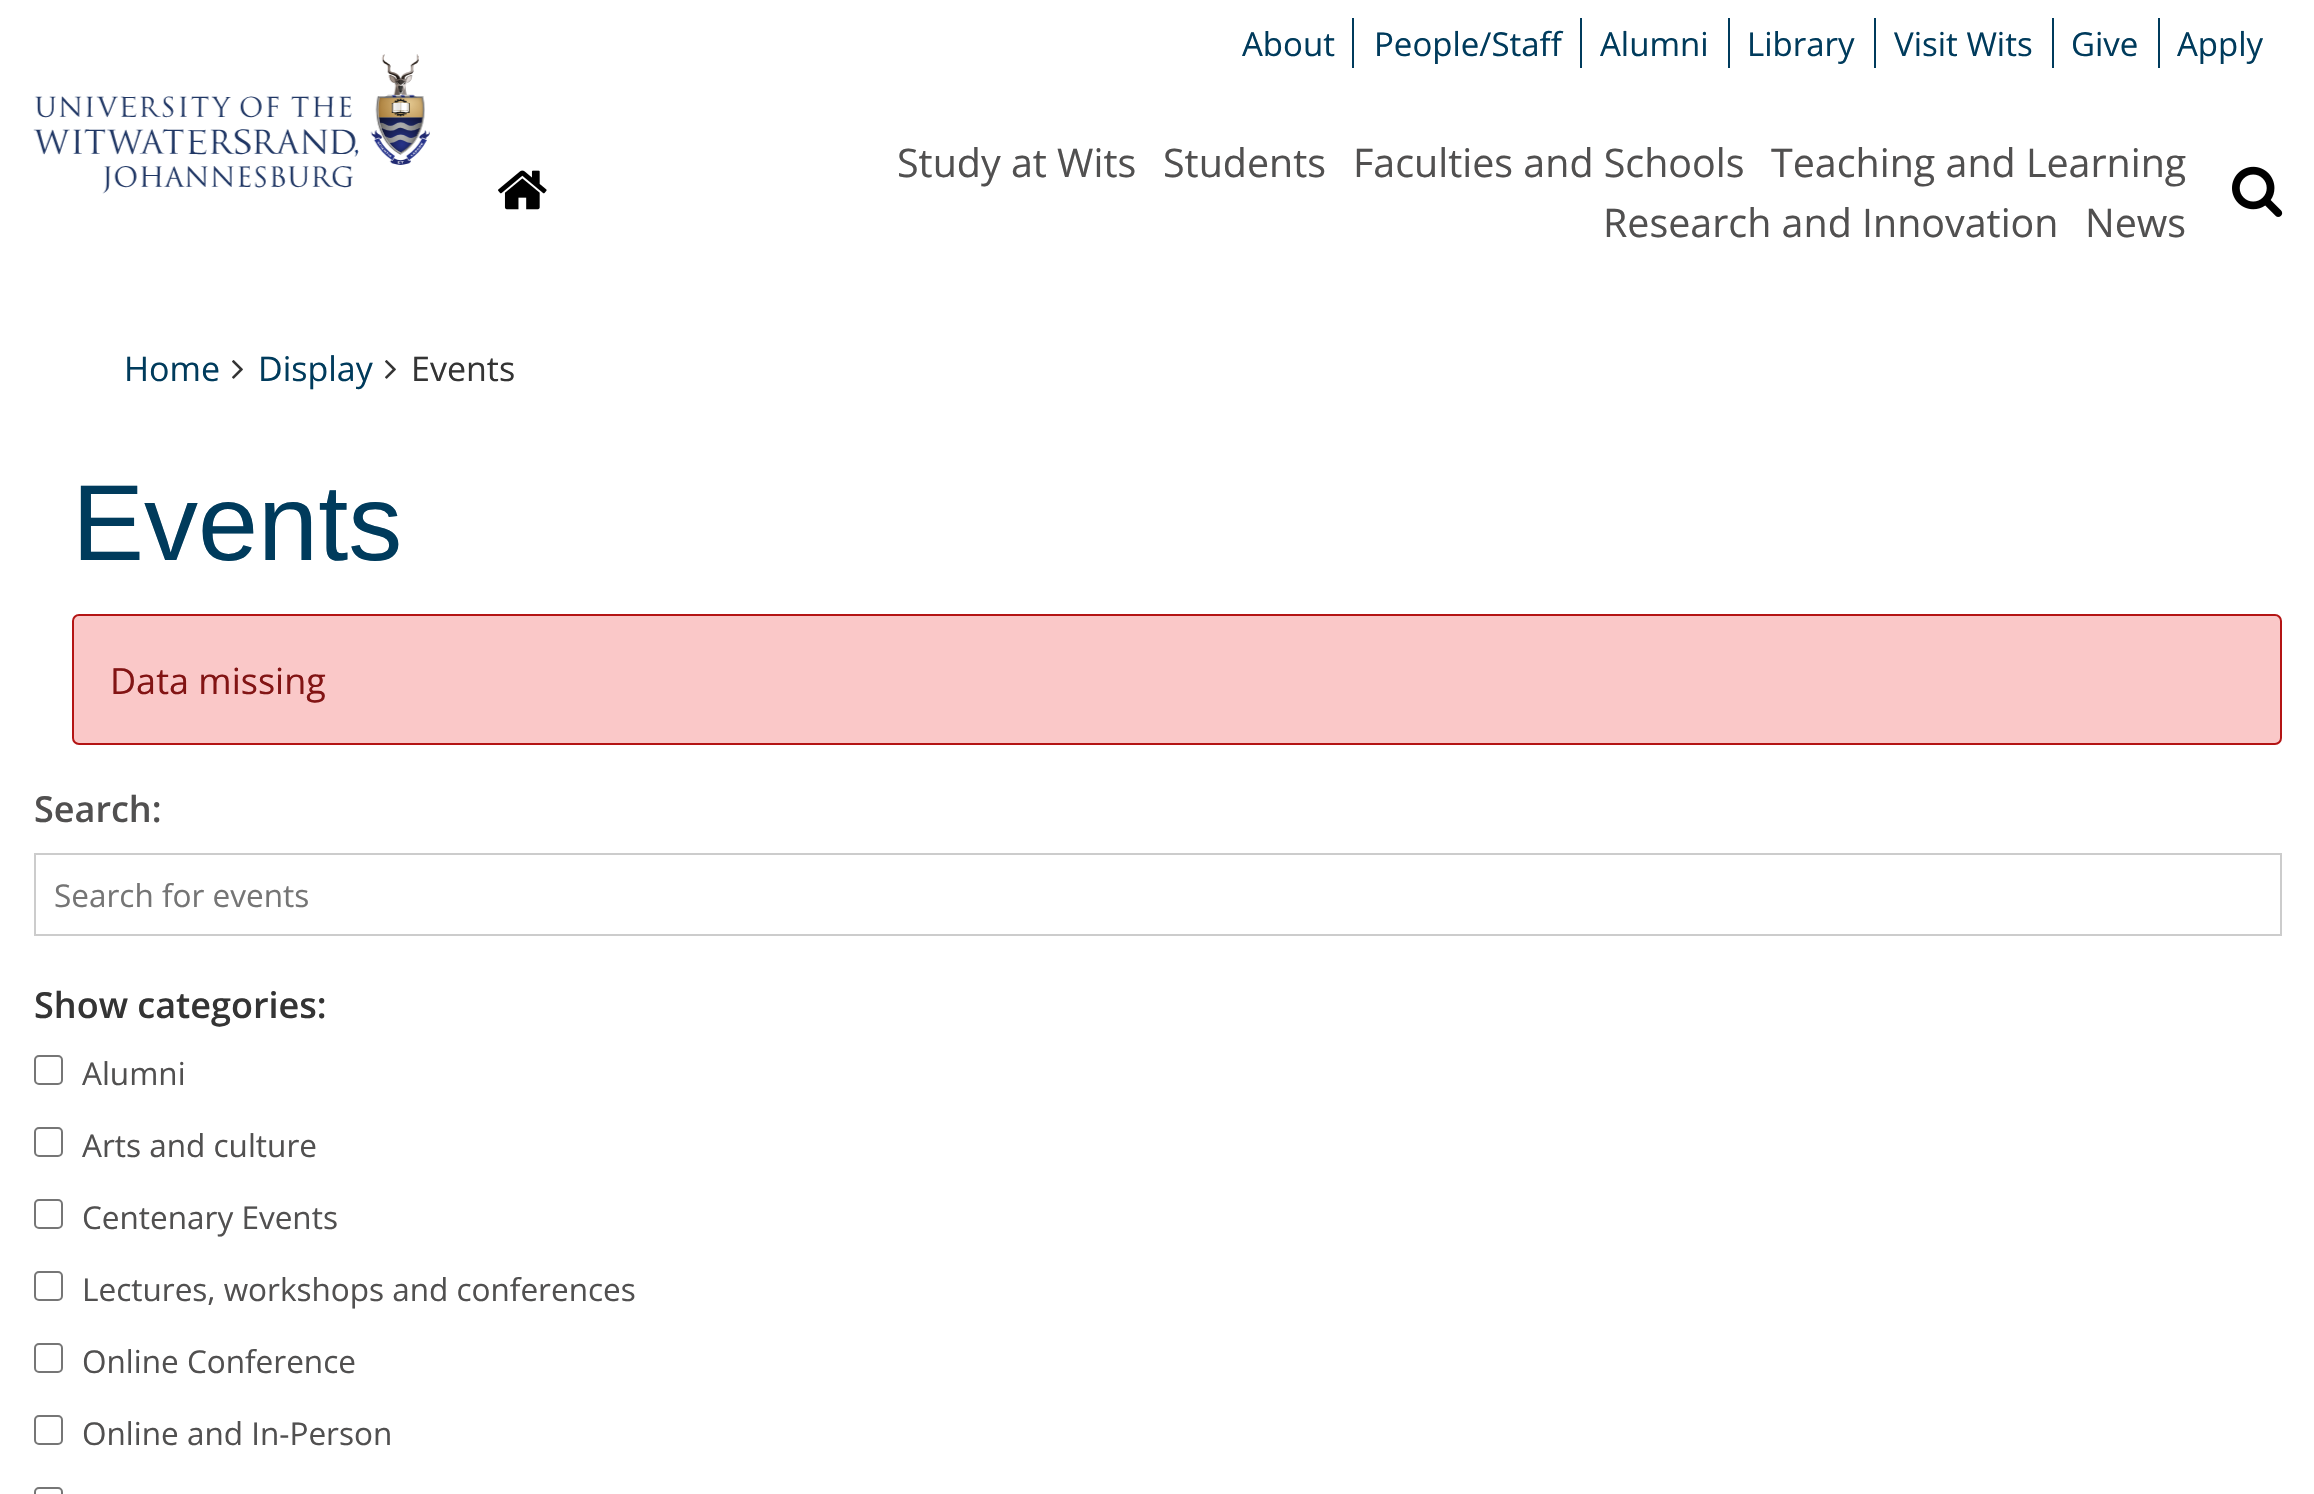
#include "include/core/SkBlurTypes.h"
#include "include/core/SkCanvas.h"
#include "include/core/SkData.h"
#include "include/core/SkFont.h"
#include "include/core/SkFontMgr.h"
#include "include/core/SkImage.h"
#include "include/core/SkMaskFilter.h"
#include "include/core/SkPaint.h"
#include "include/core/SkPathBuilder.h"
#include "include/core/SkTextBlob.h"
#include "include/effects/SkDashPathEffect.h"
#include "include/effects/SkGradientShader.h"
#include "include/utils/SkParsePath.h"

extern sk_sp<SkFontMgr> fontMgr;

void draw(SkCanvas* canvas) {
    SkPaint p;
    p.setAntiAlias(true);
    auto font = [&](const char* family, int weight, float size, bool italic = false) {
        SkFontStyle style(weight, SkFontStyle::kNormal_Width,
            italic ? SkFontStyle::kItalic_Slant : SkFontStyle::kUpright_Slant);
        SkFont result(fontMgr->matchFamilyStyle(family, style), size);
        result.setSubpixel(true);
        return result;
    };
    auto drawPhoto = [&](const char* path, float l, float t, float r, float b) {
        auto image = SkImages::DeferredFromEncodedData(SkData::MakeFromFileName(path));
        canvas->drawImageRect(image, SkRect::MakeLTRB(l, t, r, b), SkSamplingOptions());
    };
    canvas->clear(0xFFFFFFFF);
    drawPhoto("media/1.png", 33, 54, 430, 194);
    auto font1 = font("Open Sans", 400, 33);
    p.setColor(0xFF003B5C);
    canvas->drawString("About", 1242, 56, font1, p);
    canvas->drawRect(SkRect::MakeLTRB(1352, 18, 1354, 68), p);
    canvas->drawString("People/Staff", 1374, 56, font1, p);
    canvas->drawRect(SkRect::MakeLTRB(1580, 18, 1582, 68), p);
    canvas->drawString("Alumni", 1600, 56, font1, p);
    canvas->drawRect(SkRect::MakeLTRB(1728, 18, 1730, 68), p);
    canvas->drawString("Library", 1747, 56, font1, p);
    canvas->drawRect(SkRect::MakeLTRB(1874, 18, 1876, 68), p);
    canvas->drawString("Visit Wits", 1894, 56, font1, p);
    canvas->drawRect(SkRect::MakeLTRB(2052, 18, 2054, 68), p);
    canvas->drawString("Give", 2071, 56, font1, p);
    canvas->drawRect(SkRect::MakeLTRB(2158, 18, 2160, 68), p);
    canvas->drawString("Apply", 2177, 56, font1, p);
    drawPhoto("media/2.png", 498, 170, 547, 210);
    auto font2 = font("Open Sans", 400, 39.4f);
    p.setColor(0xFF515050);
    {
        const struct { const char* s; float x, y; } items[] = {
            {"Study at Wits", 897, 177},
            {"Students", 1163, 177},
            {"Faculties and Schools", 1353, 177},
            {"Teaching and Learning", 1771, 177},
            {"Research and Innovation", 1603, 237},
            {"News", 2085, 237},
        };
        for (auto [s, x, y] : items) {
            canvas->drawString(s, x, y, font2, p);
        }
    }
    drawPhoto("media/3.png", 2232, 166, 2283, 217);
    auto font3 = font("Open Sans", 400, 34);
    p.setColor(0xFF003B5C);
    canvas->drawString("Home", 124, 381, font3, p);
    drawPhoto("media/4.png", 232, 360, 243, 379);
    canvas->drawString("Display", 258, 381, font3, p);
    drawPhoto("media/4.png", 385, 360, 396, 379);
    p.setColor(0xFF343434);
    canvas->drawString("Events", 411, 381, font3, p);
    auto font4 = font("Liberation Sans", 400, 108);
    p.setColor(0xFF003B5C);
    canvas->drawString("Events", 72, 560, font4, p);
    p.setColor(0xFFFAC8C8);
    canvas->drawRoundRect(SkRect::MakeLTRB(73, 615, 2281, 744), 6, 6, p);
    p.setStyle(SkPaint::kStroke_Style);
    p.setStrokeWidth(2);
    p.setColor(0xFFB41414);
    canvas->drawRoundRect(SkRect::MakeLTRB(73, 615, 2281, 744), 6, 6, p);
    auto font5 = font("Open Sans", 400, 36);
    p.setStyle(SkPaint::kFill_Style);
    p.setColor(0xFF821414);
    canvas->drawString("Data missing", 110, 694, font5, p);
    auto font6 = font("Open Sans", 600, 36);
    p.setColor(0xFF515050);
    canvas->drawString("Search:", 34, 822, font6, p);
    p.setStyle(SkPaint::kStroke_Style);
    p.setColor(0xFFCCCCCC);
    canvas->drawRect(SkRect::MakeLTRB(35, 854, 2281, 935), p);
    auto font7 = font("Open Sans", 400, 31.5f);
    p.setStyle(SkPaint::kFill_Style);
    p.setColor(0xFF757575);
    canvas->drawString("Search for events", 54, 907, font7, p);
    p.setColor(0xFF343434);
    canvas->drawString("Show categories:", 34, 1018, font6, p);
    p.setStyle(SkPaint::kStroke_Style);
    p.setColor(0xFF767676);
    canvas->drawRoundRect(SkRect::MakeLTRB(35, 1056, 62, 1084), 4, 4, p);
    p.setStyle(SkPaint::kFill_Style);
    p.setColor(0xFF515050);
    canvas->drawString("Alumni", 82, 1085, font7, p);
    p.setStyle(SkPaint::kStroke_Style);
    p.setColor(0xFF767676);
    canvas->drawRoundRect(SkRect::MakeLTRB(35, 1128, 62, 1156), 4, 4, p);
    p.setStyle(SkPaint::kFill_Style);
    p.setColor(0xFF515050);
    canvas->drawString("Arts and culture", 82, 1157, font7, p);
    p.setStyle(SkPaint::kStroke_Style);
    p.setColor(0xFF767676);
    canvas->drawRoundRect(SkRect::MakeLTRB(35, 1200, 62, 1228), 4, 4, p);
    p.setStyle(SkPaint::kFill_Style);
    p.setColor(0xFF515050);
    canvas->drawString("Centenary Events", 82, 1229, font7, p);
    p.setStyle(SkPaint::kStroke_Style);
    p.setColor(0xFF767676);
    canvas->drawRoundRect(SkRect::MakeLTRB(35, 1272, 62, 1300), 4, 4, p);
    p.setStyle(SkPaint::kFill_Style);
    p.setColor(0xFF515050);
    canvas->drawString("Lectures, workshops and conferences", 82, 1301, font7, p);
    p.setStyle(SkPaint::kStroke_Style);
    p.setColor(0xFF767676);
    canvas->drawRoundRect(SkRect::MakeLTRB(35, 1344, 62, 1372), 4, 4, p);
    p.setStyle(SkPaint::kFill_Style);
    p.setColor(0xFF515050);
    canvas->drawString("Online Conference", 82, 1373, font7, p);
    p.setStyle(SkPaint::kStroke_Style);
    p.setColor(0xFF767676);
    canvas->drawRoundRect(SkRect::MakeLTRB(35, 1416, 62, 1444), 4, 4, p);
    p.setStyle(SkPaint::kFill_Style);
    p.setColor(0xFF515050);
    canvas->drawString("Online and In-Person", 82, 1445, font7, p);
    p.setStyle(SkPaint::kStroke_Style);
    p.setColor(0xFF767676);
    canvas->drawRoundRect(SkRect::MakeLTRB(35, 1488, 62, 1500), 4, 4, p);
}
